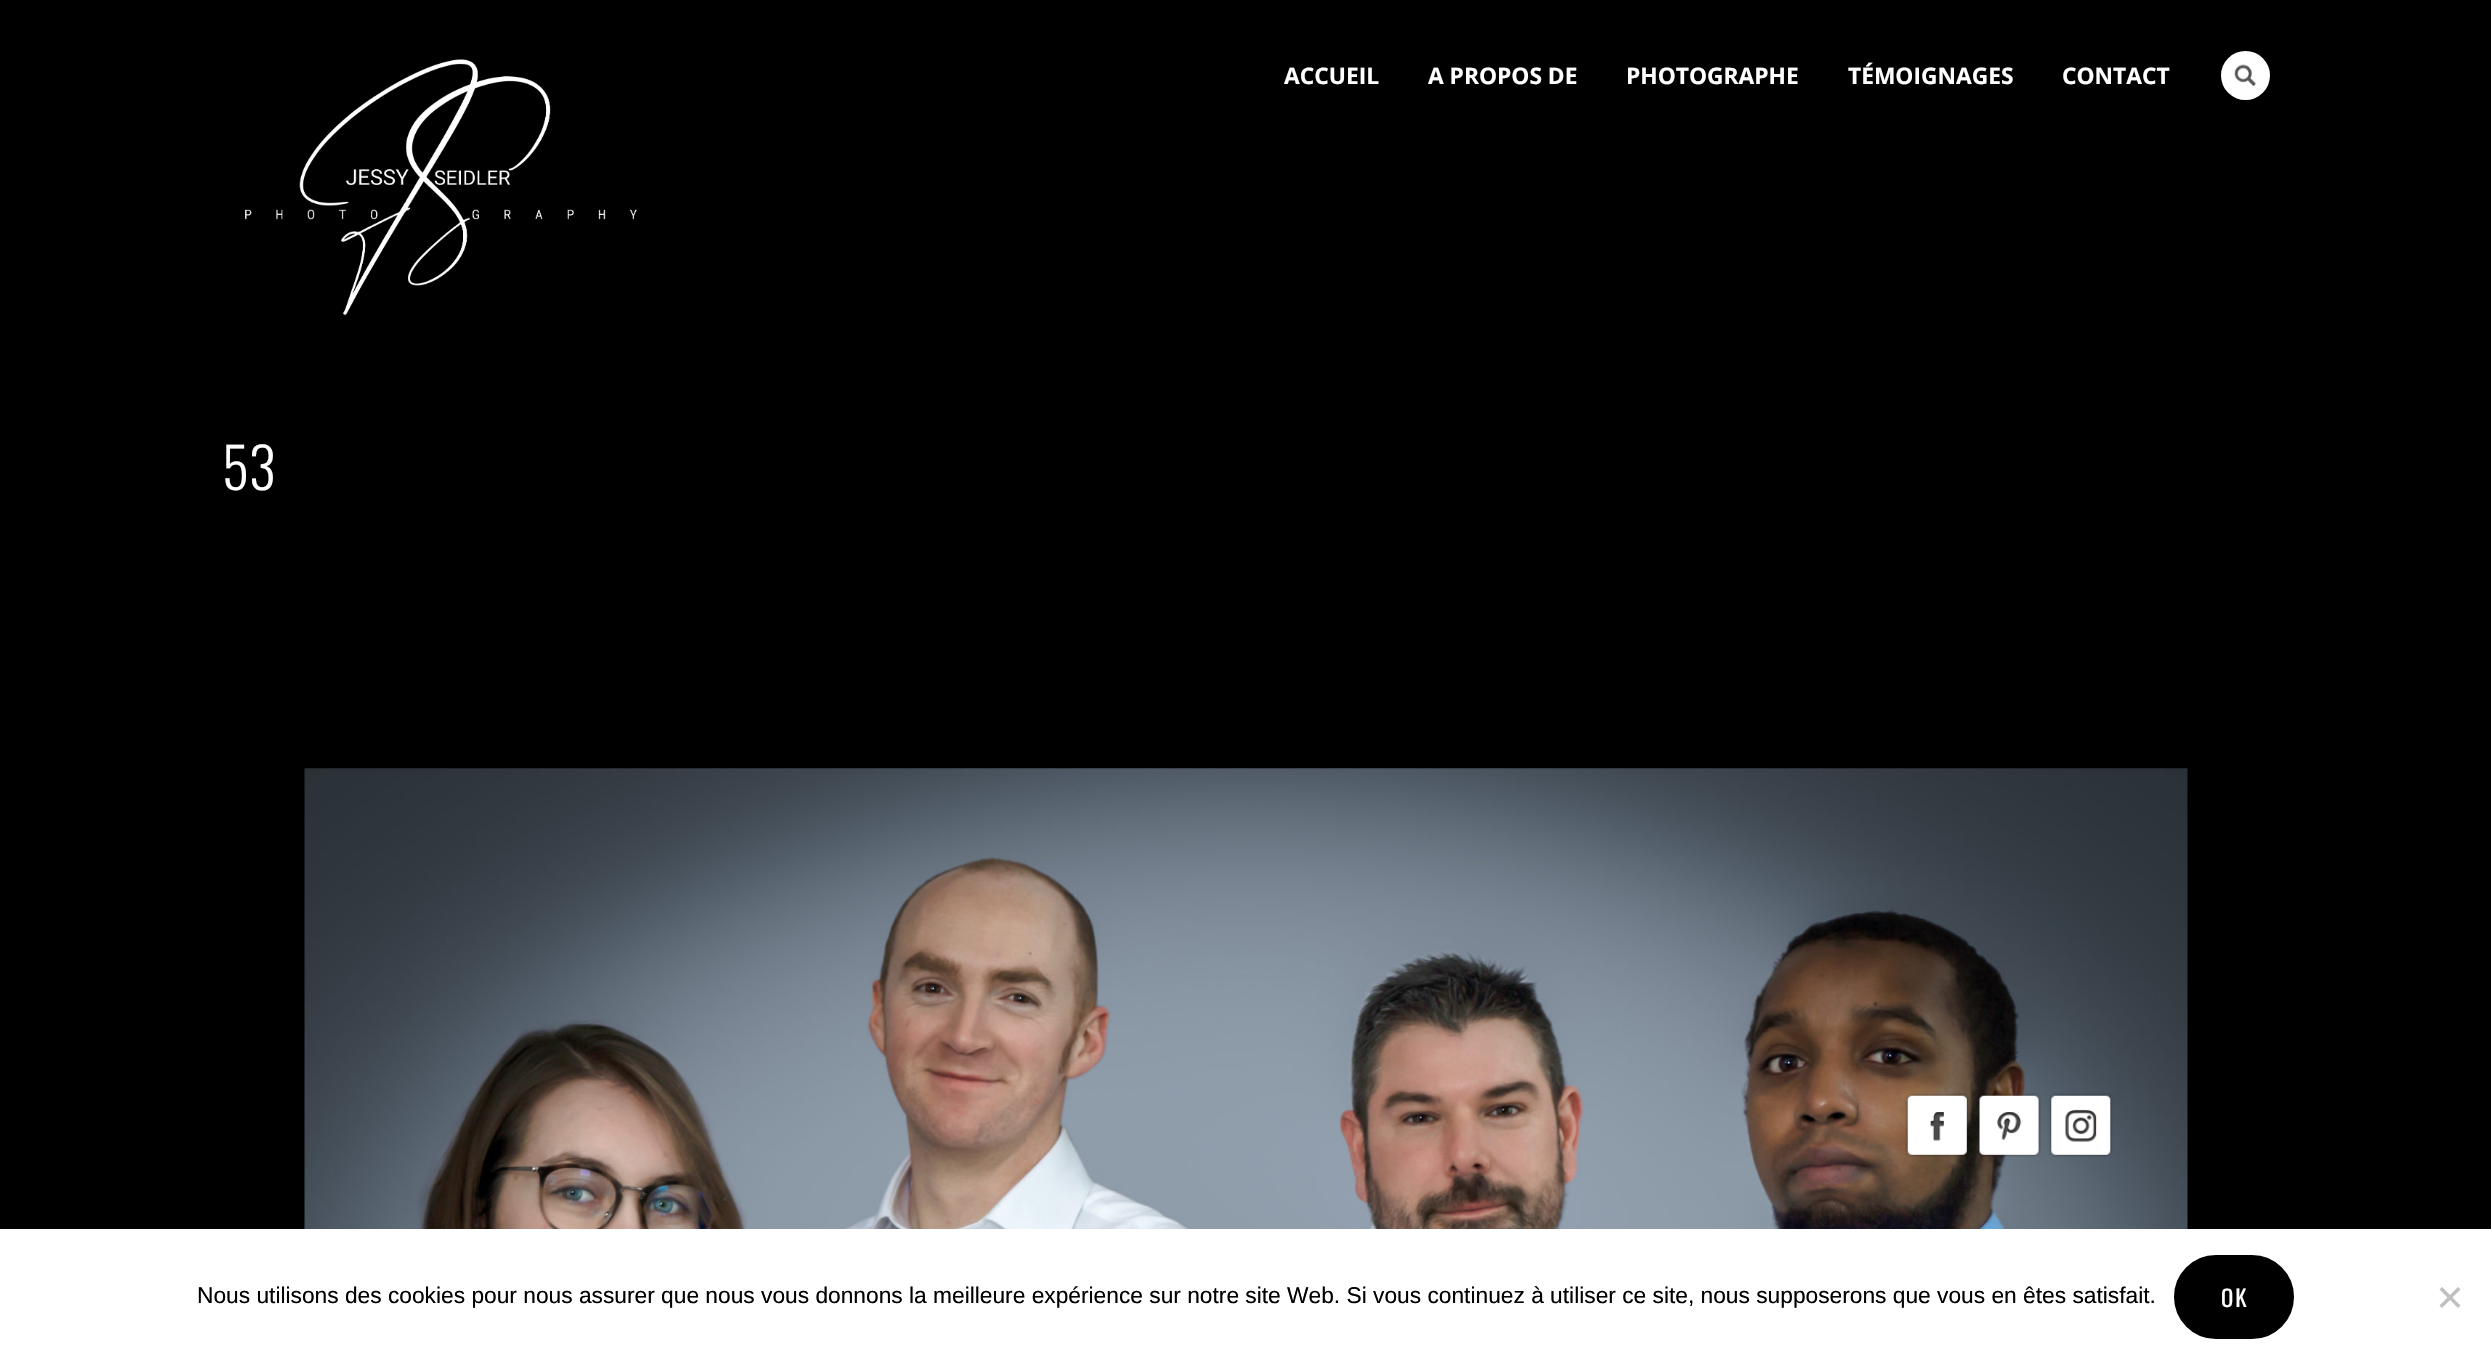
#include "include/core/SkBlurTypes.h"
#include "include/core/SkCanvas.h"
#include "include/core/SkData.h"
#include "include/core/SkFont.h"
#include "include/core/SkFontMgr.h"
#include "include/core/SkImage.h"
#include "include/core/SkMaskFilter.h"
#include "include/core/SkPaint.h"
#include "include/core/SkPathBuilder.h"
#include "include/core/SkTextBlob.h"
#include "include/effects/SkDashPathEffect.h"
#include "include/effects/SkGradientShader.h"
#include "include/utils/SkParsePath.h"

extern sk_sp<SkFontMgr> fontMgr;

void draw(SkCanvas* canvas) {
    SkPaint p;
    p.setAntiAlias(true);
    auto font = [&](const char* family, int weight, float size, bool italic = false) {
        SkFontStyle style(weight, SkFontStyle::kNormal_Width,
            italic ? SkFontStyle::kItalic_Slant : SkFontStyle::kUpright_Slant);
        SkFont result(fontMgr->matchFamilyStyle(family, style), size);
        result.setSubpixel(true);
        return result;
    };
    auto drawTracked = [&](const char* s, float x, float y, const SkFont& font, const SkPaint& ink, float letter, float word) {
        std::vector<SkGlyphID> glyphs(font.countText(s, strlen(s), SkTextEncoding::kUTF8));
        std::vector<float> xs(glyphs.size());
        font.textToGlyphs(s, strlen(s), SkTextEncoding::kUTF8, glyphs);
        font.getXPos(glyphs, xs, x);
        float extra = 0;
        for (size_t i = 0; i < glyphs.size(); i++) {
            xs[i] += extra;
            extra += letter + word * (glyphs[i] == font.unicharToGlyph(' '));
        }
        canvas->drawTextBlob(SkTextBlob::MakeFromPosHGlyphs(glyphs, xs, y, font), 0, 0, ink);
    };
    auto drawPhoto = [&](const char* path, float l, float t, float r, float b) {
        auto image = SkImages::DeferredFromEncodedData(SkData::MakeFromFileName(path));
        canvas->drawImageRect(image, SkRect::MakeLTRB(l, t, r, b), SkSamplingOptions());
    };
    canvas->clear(0xFF000000);
    drawPhoto("media/1.png", 245, 59, 637, 315);
    auto font1 = font("Open Sans", 700, 22.75f);
    p.setColor(0xFFFFFFFF);
    {
        const struct { const char* s; float x, y; } items[] = {
            {"ACCUEIL", 1284, 84},
            {"A PROPOS DE", 1428, 84},
            {"PHOTOGRAPHE", 1626, 84},
            {"TÉMOIGNAGES", 1848, 84},
            {"CONTACT", 2062, 84},
        };
        for (auto [s, x, y] : items) {
            canvas->drawString(s, x, y, font1, p);
        }
    }
    canvas->drawCircle(2245.5f, 75.5f, 24.5f, p);
    drawPhoto("media/2.png", 2234, 64, 2256, 86);
    auto font2 = font("Oswald", 300, 56);
    canvas->drawString("53", 222, 490, font2, p);
    drawPhoto("media/3.png", 304, 768, 2188, 1229);
    drawPhoto("media/4.png", 1905, 1093, 1969, 1157);
    drawPhoto("media/5.png", 1978, 1093, 2041, 1157);
    drawPhoto("media/6.png", 2049, 1093, 2113, 1157);
    canvas->drawRect(SkRect::MakeLTRB(0, 1229, 2491, 1365), p);
    auto font3 = font("Liberation Sans", 400, 22.75f);
    p.setColor(0xFF000000);
    canvas->drawString("Nous utilisons des cookies pour nous assurer que nous vous donnons la meilleure expérience sur notre site Web. Si vous continuez à utiliser ce site, nous supposerons que vous en êtes satisfait.", 197, 1303, font3, p);
    canvas->drawRoundRect(SkRect::MakeLTRB(2176, 1257, 2292, 1337), 40, 40, p);
    p.setStyle(SkPaint::kStroke_Style);
    p.setStrokeWidth(4);
    canvas->drawRoundRect(SkRect::MakeLTRB(2176, 1257, 2292, 1337), 40, 40, p);
    auto font4 = font("Oswald", 400, 22.75f);
    p.setStyle(SkPaint::kFill_Style);
    p.setColor(0xFFFFFFFF);
    drawTracked("OK", 2221, 1307, font4, p, 2, 0);
    p.setColor(0xFFC0C0C0);
    canvas->drawPath(SkPathBuilder().moveTo(2458, 1287).lineTo(2460.5f, 1289.5f).lineTo(2442, 1308).lineTo(2439.5f, 1305.5f).close().detach(), p);
    canvas->drawPath(SkPathBuilder().moveTo(2439.5f, 1289.5f).lineTo(2442, 1287).lineTo(2460.5f, 1305.5f).lineTo(2458, 1308).close().detach(), p);
}
